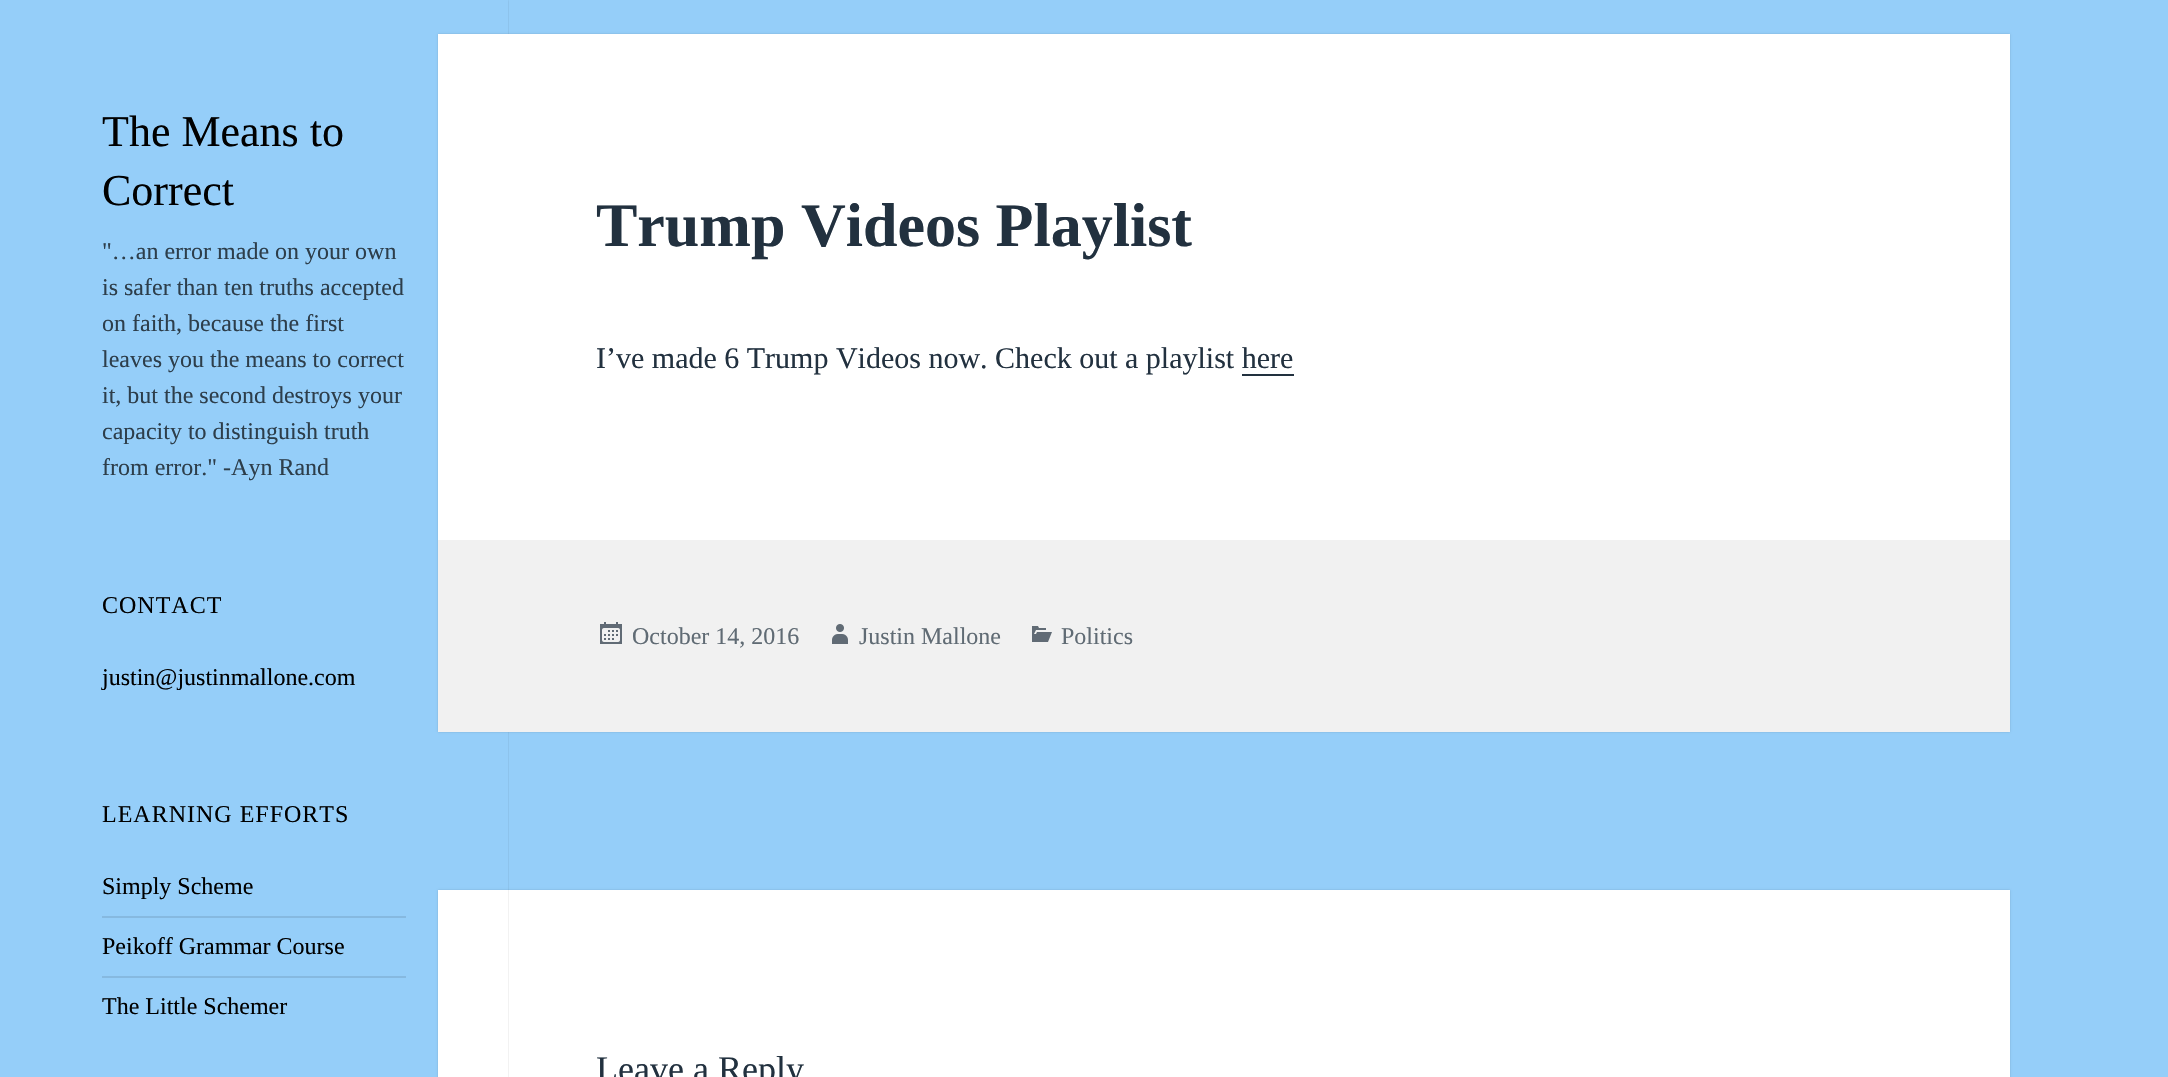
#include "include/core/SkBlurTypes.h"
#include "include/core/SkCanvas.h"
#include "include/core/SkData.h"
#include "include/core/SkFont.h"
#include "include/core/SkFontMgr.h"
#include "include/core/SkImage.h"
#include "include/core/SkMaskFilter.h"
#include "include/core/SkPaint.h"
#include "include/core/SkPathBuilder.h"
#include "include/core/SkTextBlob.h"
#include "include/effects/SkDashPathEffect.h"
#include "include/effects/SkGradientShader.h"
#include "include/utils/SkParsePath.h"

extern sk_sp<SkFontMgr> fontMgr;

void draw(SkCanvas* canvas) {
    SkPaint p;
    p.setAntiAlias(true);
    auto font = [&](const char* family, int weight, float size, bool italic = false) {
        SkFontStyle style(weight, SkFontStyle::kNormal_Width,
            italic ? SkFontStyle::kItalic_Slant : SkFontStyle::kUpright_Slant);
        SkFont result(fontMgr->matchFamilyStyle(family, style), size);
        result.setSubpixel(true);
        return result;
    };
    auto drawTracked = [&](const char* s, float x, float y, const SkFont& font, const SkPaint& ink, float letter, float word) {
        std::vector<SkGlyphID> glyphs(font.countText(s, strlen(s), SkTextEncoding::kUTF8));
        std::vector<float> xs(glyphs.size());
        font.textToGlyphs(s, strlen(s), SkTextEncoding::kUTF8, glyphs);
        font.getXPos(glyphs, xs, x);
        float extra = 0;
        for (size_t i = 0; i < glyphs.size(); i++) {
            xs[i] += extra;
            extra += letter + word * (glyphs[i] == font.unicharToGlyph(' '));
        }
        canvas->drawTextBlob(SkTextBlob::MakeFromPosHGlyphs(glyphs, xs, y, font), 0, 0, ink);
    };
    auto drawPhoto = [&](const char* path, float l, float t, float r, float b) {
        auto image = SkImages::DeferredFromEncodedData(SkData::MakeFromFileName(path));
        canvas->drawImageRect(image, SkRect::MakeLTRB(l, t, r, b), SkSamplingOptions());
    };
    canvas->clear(0xFF95CEF9);
    p.setColor(0x26000000);
    p.setMaskFilter(SkMaskFilter::MakeBlur(kNormal_SkBlurStyle, 1));
    canvas->drawRect(SkRect::MakeLTRB(438, 890, 2010, 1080), p);
    p.setMaskFilter(nullptr);
    p.setColor(0xFFFFFFFF);
    canvas->drawRect(SkRect::MakeLTRB(438, 890, 2010, 1077), p);
    canvas->save();
    canvas->clipRect(SkRect::MakeLTRB(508, 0, 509, 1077));
    p.setColor(0x26000000);
    p.setMaskFilter(SkMaskFilter::MakeBlur(kNormal_SkBlurStyle, 1));
    canvas->drawRect(SkRect::MakeLTRB(0, 0, 508, 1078), p);
    p.setMaskFilter(nullptr);
    canvas->restore();
    auto font1 = font("Liberation Serif", 400, 44);
    p.setColor(0xFF000000);
    canvas->drawString("The Means to", 102, 146, font1, p);
    canvas->drawString("Correct", 102, 205, font1, p);
    auto font2 = font("Liberation Serif", 400, 24);
    p.setColor(0xFF2D3E4B);
    {
        const struct { const char* s; float x, y; } items[] = {
            {"\"…an error made on your own", 102, 259},
            {"is safer than ten truths accepted", 102, 295},
            {"on faith, because the first", 102, 331},
            {"leaves you the means to correct", 102, 367},
            {"it, but the second destroys your", 102, 403},
            {"capacity to distinguish truth", 102, 439},
            {"from error.\" -Ayn Rand", 102, 475},
        };
        for (auto [s, x, y] : items) {
            canvas->drawString(s, x, y, font2, p);
        }
    }
    p.setColor(0xFF000000);
    drawTracked("CONTACT", 102, 613, font2, p, 1, 0);
    canvas->drawString("justin@justinmallone.com", 102, 685, font2, p);
    drawTracked("LEARNING EFFORTS", 102, 822, font2, p, 1, 0);
    canvas->drawString("Simply Scheme", 102, 894, font2, p);
    p.setColor(0xFF86B9E0);
    canvas->drawRect(SkRect::MakeLTRB(102, 916, 406, 918), p);
    p.setColor(0xFF000000);
    canvas->drawString("Peikoff Grammar Course", 102, 954, font2, p);
    p.setColor(0xFF86B9E0);
    canvas->drawRect(SkRect::MakeLTRB(102, 976, 406, 978), p);
    p.setColor(0xFF000000);
    canvas->drawString("The Little Schemer", 102, 1014, font2, p);
    p.setColor(0x26000000);
    p.setMaskFilter(SkMaskFilter::MakeBlur(kNormal_SkBlurStyle, 1));
    canvas->drawRect(SkRect::MakeLTRB(438, 34, 2010, 732), p);
    p.setMaskFilter(nullptr);
    p.setColor(0xFFFFFFFF);
    canvas->drawRect(SkRect::MakeLTRB(438, 34, 2010, 540), p);
    auto font3 = font("Liberation Serif", 700, 62);
    p.setColor(0xFF22313F);
    canvas->drawString("Trump Videos Playlist", 596, 246, font3, p);
    auto font4 = font("Liberation Serif", 400, 30);
    canvas->drawString("I’ve made 6 Trump Videos now. Check out a playlist here", 596, 368, font4, p);
    canvas->drawRect(SkRect::MakeLTRB(1242, 374, 1294, 376), p);
    p.setColor(0xFFF1F1F1);
    canvas->drawRect(SkRect::MakeLTRB(438, 540, 2010, 732), p);
    drawPhoto("media/1.png", 600, 622, 622, 644);
    p.setColor(0xFF606B74);
    canvas->drawString("October 14, 2016", 632, 644, font2, p);
    drawPhoto("media/2.png", 832, 624, 848, 644);
    canvas->drawString("Justin Mallone", 859, 644, font2, p);
    drawPhoto("media/3.png", 1032, 626, 1052, 642);
    canvas->drawString("Politics", 1061, 644, font2, p);
    auto font5 = font("Liberation Serif", 400, 36);
    p.setColor(0xFF22313F);
    canvas->drawString("Leave a Reply", 596, 1081, font5, p);
}
